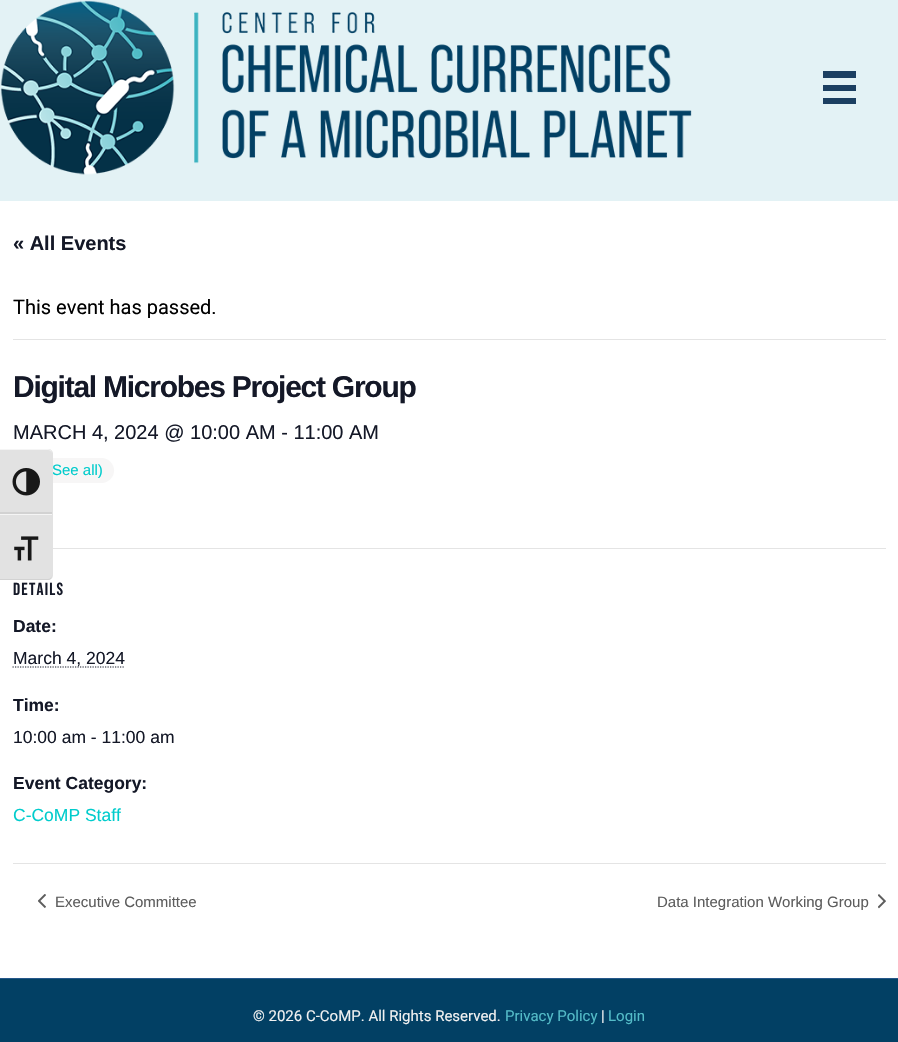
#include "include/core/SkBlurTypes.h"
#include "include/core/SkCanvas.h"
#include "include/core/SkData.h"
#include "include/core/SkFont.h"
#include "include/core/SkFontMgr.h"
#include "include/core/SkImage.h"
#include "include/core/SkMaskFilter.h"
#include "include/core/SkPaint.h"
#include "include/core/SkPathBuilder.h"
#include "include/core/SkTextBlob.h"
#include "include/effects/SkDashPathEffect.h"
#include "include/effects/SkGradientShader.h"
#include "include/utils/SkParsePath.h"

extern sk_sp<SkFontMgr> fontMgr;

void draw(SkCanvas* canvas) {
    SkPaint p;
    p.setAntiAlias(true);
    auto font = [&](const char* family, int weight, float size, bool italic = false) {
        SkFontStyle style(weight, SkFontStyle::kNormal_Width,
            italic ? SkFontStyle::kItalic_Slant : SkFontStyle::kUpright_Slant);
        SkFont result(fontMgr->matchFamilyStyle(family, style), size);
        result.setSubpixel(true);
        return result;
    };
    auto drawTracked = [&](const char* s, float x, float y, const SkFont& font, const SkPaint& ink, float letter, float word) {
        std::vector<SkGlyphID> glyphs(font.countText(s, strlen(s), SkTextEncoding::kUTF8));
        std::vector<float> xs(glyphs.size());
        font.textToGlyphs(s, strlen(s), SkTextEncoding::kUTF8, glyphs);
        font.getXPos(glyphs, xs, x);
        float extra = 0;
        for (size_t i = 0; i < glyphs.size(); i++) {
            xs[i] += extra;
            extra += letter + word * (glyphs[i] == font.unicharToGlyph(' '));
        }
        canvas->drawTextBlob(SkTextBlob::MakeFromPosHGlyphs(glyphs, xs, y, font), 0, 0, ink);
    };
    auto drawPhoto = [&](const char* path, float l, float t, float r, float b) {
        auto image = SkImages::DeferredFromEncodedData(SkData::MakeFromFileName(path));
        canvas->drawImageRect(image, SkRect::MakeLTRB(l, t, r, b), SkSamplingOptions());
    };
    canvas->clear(0xFFFFFFFF);
    p.setColor(0xFFE3F2F5);
    canvas->drawRect(SkRect::MakeLTRB(0, 0, 898, 201), p);
    drawPhoto("media/1.png", 0, 0, 692, 175);
    {
        const struct { float l, t, r, b; SkColor color; } items[] = {
            {823, 71, 856, 78, 0xFF1B3F61},
            {823, 85, 856, 91, 0xFF1B3F61},
            {823, 98, 856, 104, 0xFF1B3F61},
        };
        for (auto [l, t, r, b, color] : items) {
            p.setColor(color);
            canvas->drawRect(SkRect::MakeLTRB(l, t, r, b), p);
        }
    }
    auto font1 = font("Liberation Sans", 700, 20);
    p.setColor(0xFF141827);
    canvas->drawString("« All Events", 13, 250, font1, p);
    p.setColor(0xFFE4E4E4);
    canvas->drawRect(SkRect::MakeLTRB(13, 339, 886, 340), p);
    auto font2 = font("Roboto", 400, 20);
    p.setColor(0xFF000000);
    canvas->drawString("This event has passed.", 13, 314, font2, p);
    auto font3 = font("Liberation Sans", 700, 30);
    p.setColor(0xFF141827);
    drawTracked("Digital Microbes Project Group", 13, 397, font3, p, -1.25f, 0);
    auto font4 = font("Liberation Sans", 400, 20);
    canvas->drawString("MARCH 4, 2024 @ 10:00 AM - 11:00 AM", 13, 439, font4, p);
    p.setColor(0xFFF7F6F6);
    canvas->drawRoundRect(SkRect::MakeLTRB(13, 458, 114, 483), 12.5f, 12.5f, p);
    auto font5 = font("Liberation Sans", 400, 15);
    p.setColor(0xFF00CCCC);
    canvas->drawString("See all)", 52, 475, font5, p);
    p.setColor(0xFFE4E4E4);
    canvas->drawRect(SkRect::MakeLTRB(53, 548, 886, 549), p);
    auto font6 = font("Bebas Neue", 700, 17.5f);
    p.setColor(0xFF141827);
    drawTracked("DETAILS", 13, 595, font6, p, 1.25f, 0);
    auto font7 = font("Liberation Sans", 700, 17.5f);
    canvas->drawString("Date:", 13, 632, font7, p);
    p.setStyle(SkPaint::kStroke_Style);
    p.setStrokeWidth(1.2f);
    p.setPathEffect(SkDashPathEffect::Make({{1.25f, 1.25f}}, 0));
    canvas->drawPath(SkPathBuilder().moveTo(12.5f, 667).lineTo(124.5f, 667).detach(), p);
    p.setPathEffect(nullptr);
    auto font8 = font("Liberation Sans", 400, 17.5f);
    p.setStyle(SkPaint::kFill_Style);
    canvas->drawString("March 4, 2024", 13, 664, font8, p);
    canvas->drawString("Time:", 13, 711, font7, p);
    canvas->drawString("10:00 am - 11:00 am", 13, 743, font8, p);
    canvas->drawString("Event Category:", 13, 789, font7, p);
    p.setColor(0xFF00CCCC);
    canvas->drawString("C-CoMP Staff", 13, 821, font8, p);
    p.setColor(0xFFE4E4E4);
    canvas->drawRect(SkRect::MakeLTRB(13, 863, 886, 864), p);
    drawPhoto("media/2.png", 38, 894, 46, 908);
    p.setColor(0xFF5D5D5D);
    canvas->drawString("Executive Committee", 55, 907, font5, p);
    canvas->drawString("Data Integration Working Group", 657, 907, font5, p);
    drawPhoto("media/3.png", 878, 894, 886, 909);
    p.setColor(0xFF024064);
    canvas->drawRect(SkRect::MakeLTRB(0, 979, 898, 1042), p);
    p.setColor(0xFF25578A);
    canvas->drawRect(SkRect::MakeLTRB(0, 978, 898, 979), p);
    auto font9 = font("Roboto", 400, 15);
    p.setColor(0xFFF1F1F1);
    canvas->drawString("© 2026 C-CoMP. All Rights Reserved.", 253, 1021, font9, p);
    p.setColor(0xFF54BCC8);
    canvas->drawString("Privacy Policy", 505, 1021, font9, p);
    p.setColor(0xFFF1F1F1);
    canvas->drawString("|", 601, 1021, font9, p);
    p.setColor(0xFF54BCC8);
    canvas->drawString("Login", 608, 1021, font9, p);
    p.setColor(0xFFE2E2E2);
    canvas->drawPath(SkPathBuilder().moveTo(0, 449).lineTo(48, 449).cubicTo(51, 449, 53, 451, 53, 454).lineTo(53, 514).lineTo(0, 514).close().detach(), p);
    p.setColor(0xFFF5F5F5);
    canvas->drawPath(SkPathBuilder().moveTo(0, 450).lineTo(48, 450).cubicTo(50, 450, 52, 452, 52, 454).cubicTo(52, 451, 50, 449, 48, 449).lineTo(0, 449).close().detach(), p);
    p.setColor(0xFFD2D2D2);
    canvas->drawRect(SkRect::MakeLTRB(0, 512, 52, 514), p);
    drawPhoto("media/4.png", 12, 468, 40, 496);
    p.setColor(0xFFE2E2E2);
    canvas->drawPath(SkPathBuilder().moveTo(0, 514).lineTo(53, 514).lineTo(53, 575).cubicTo(53, 578, 51, 580, 48, 580).lineTo(0, 580).close().detach(), p);
    p.setColor(0xFFF5F5F5);
    canvas->drawRect(SkRect::MakeLTRB(0, 514, 52, 515), p);
    p.setColor(0xFFD2D2D2);
    canvas->drawPath(SkPathBuilder().moveTo(48, 580).cubicTo(50, 580, 52, 578, 52, 575).cubicTo(52, 577, 50, 579, 48, 579).lineTo(0, 579).lineTo(0, 580).close().detach(), p);
    drawPhoto("media/5.png", 14, 536, 39, 561);
}
